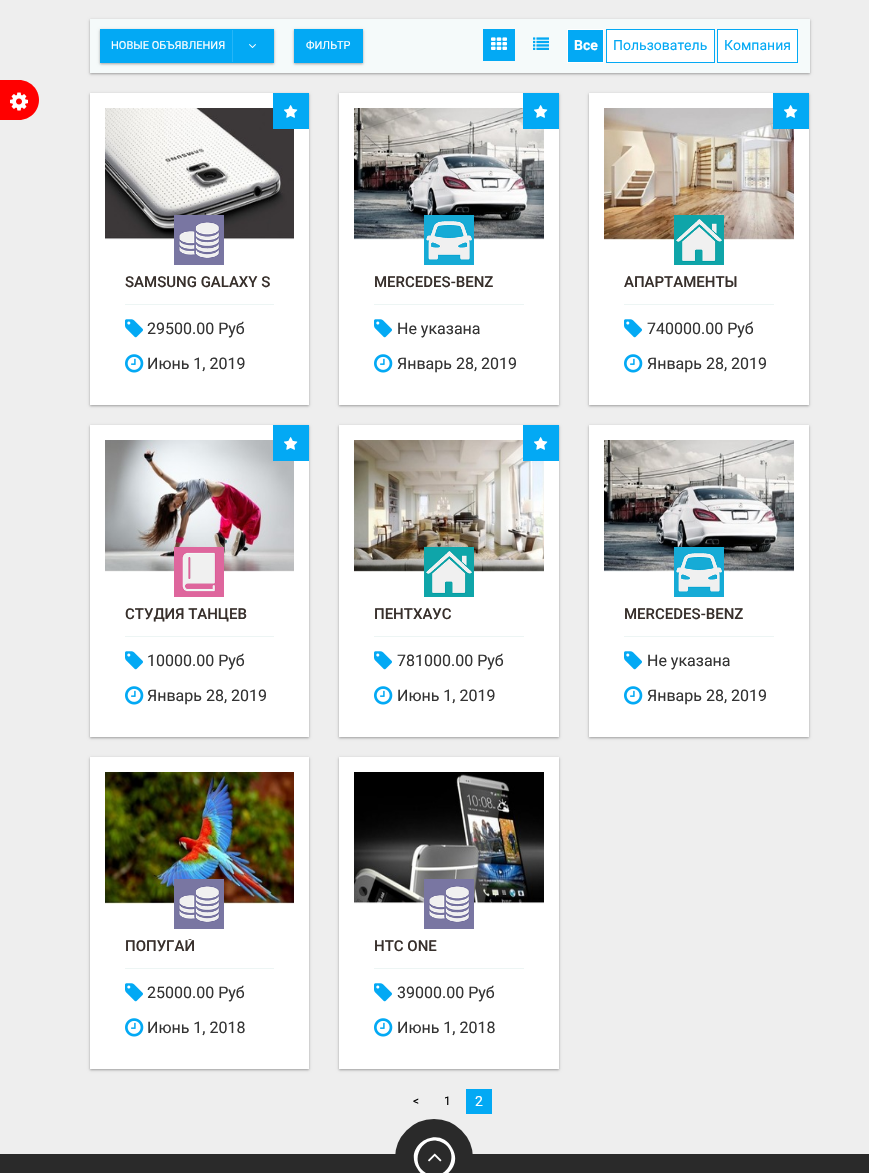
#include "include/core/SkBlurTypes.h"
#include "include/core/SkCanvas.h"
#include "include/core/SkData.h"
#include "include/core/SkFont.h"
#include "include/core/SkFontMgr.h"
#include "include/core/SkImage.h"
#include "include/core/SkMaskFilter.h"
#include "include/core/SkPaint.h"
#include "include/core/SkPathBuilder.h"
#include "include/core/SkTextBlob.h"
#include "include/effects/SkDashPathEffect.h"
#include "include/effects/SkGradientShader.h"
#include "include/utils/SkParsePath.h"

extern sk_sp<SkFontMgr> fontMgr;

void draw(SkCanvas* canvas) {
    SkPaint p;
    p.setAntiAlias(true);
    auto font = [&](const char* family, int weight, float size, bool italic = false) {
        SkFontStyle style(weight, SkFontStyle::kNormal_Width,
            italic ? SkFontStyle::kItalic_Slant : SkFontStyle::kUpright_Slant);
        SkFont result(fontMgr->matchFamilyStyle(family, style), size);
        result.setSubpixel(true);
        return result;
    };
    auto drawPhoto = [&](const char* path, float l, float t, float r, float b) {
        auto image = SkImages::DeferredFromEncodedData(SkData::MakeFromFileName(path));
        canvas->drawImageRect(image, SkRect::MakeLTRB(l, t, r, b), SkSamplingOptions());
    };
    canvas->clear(0xFFEEEEEE);
    p.setColor(0xFFFF0000);
    canvas->drawPath(SkPathBuilder().moveTo(-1, 80).lineTo(19, 80).cubicTo(30, 80, 39, 89, 39, 100).cubicTo(39, 111, 30, 120, 19, 120).lineTo(-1, 120).close().detach(), p);
    drawPhoto("media/1.png", 10, 92, 28, 111);
    p.setColor(0x3D000000);
    p.setMaskFilter(SkMaskFilter::MakeBlur(kNormal_SkBlurStyle, 1));
    canvas->drawRect(SkRect::MakeLTRB(90, 20, 810, 74), p);
    p.setMaskFilter(nullptr);
    p.setColor(0x1F000000);
    p.setMaskFilter(SkMaskFilter::MakeBlur(kNormal_SkBlurStyle, 1.5f));
    canvas->drawRect(SkRect::MakeLTRB(90, 20, 810, 74), p);
    p.setMaskFilter(nullptr);
    p.setColor(0xFFF5FAFA);
    canvas->drawRect(SkRect::MakeLTRB(90, 19, 810, 73), p);
    p.setColor(0x3D000000);
    p.setMaskFilter(SkMaskFilter::MakeBlur(kNormal_SkBlurStyle, 1));
    canvas->drawRect(SkRect::MakeLTRB(100, 30, 274, 64), p);
    p.setMaskFilter(nullptr);
    p.setColor(0x1F000000);
    p.setMaskFilter(SkMaskFilter::MakeBlur(kNormal_SkBlurStyle, 1.5f));
    canvas->drawRect(SkRect::MakeLTRB(100, 30, 274, 64), p);
    p.setMaskFilter(nullptr);
    p.setColor(0xFF03A9F4);
    canvas->drawRect(SkRect::MakeLTRB(100, 29, 274, 63), p);
    auto font1 = font("Roboto", 400, 11);
    p.setColor(0xFFFFFFFF);
    canvas->drawString("НОВЫЕ ОБЪЯВЛЕНИЯ", 111, 49, font1, p);
    drawPhoto("media/2.png", 249, 44, 256, 48);
    p.setColor(0xFF26B5F6);
    canvas->drawRect(SkRect::MakeLTRB(232, 30, 233, 62), p);
    p.setColor(0x3D000000);
    p.setMaskFilter(SkMaskFilter::MakeBlur(kNormal_SkBlurStyle, 1));
    canvas->drawRect(SkRect::MakeLTRB(294, 30, 363, 64), p);
    p.setMaskFilter(nullptr);
    p.setColor(0x1F000000);
    p.setMaskFilter(SkMaskFilter::MakeBlur(kNormal_SkBlurStyle, 1.5f));
    canvas->drawRect(SkRect::MakeLTRB(294, 30, 363, 64), p);
    p.setMaskFilter(nullptr);
    p.setColor(0xFF03A9F4);
    canvas->drawRect(SkRect::MakeLTRB(294, 29, 363, 63), p);
    p.setColor(0xFFFFFFFF);
    canvas->drawString("ФИЛЬТР", 306, 49, font1, p);
    p.setColor(0xFF03A9F4);
    canvas->drawRect(SkRect::MakeLTRB(483, 29, 515, 61), p);
    drawPhoto("media/3.png", 491, 37, 507, 50);
    drawPhoto("media/4.png", 533, 37, 549, 50);
    canvas->drawRect(SkRect::MakeLTRB(567.5f, 29.5f, 603.5f, 62.5f), p);
    p.setStyle(SkPaint::kStroke_Style);
    p.setStrokeWidth(1);
    p.setColor(0xFFFFFFFF);
    canvas->drawRect(SkRect::MakeLTRB(567.5f, 29.5f, 603.5f, 62.5f), p);
    auto font2 = font("Roboto", 700, 14);
    p.setStyle(SkPaint::kFill_Style);
    canvas->drawString("Все", 574, 50, font2, p);
    canvas->drawRect(SkRect::MakeLTRB(606.5f, 29.5f, 714.5f, 62.5f), p);
    p.setStyle(SkPaint::kStroke_Style);
    p.setColor(0xFF03A9F4);
    canvas->drawRect(SkRect::MakeLTRB(606.5f, 29.5f, 714.5f, 62.5f), p);
    auto font3 = font("Roboto", 400, 14);
    p.setStyle(SkPaint::kFill_Style);
    canvas->drawString("Пользователь", 613, 50, font3, p);
    p.setColor(0xFFFFFFFF);
    canvas->drawRect(SkRect::MakeLTRB(717.5f, 29.5f, 797.5f, 62.5f), p);
    p.setStyle(SkPaint::kStroke_Style);
    p.setColor(0xFF03A9F4);
    canvas->drawRect(SkRect::MakeLTRB(717.5f, 29.5f, 797.5f, 62.5f), p);
    p.setStyle(SkPaint::kFill_Style);
    canvas->drawString("Компания", 724, 50, font3, p);
    p.setColor(0x3D000000);
    p.setMaskFilter(SkMaskFilter::MakeBlur(kNormal_SkBlurStyle, 1));
    canvas->drawRect(SkRect::MakeLTRB(90, 94, 309, 406), p);
    p.setMaskFilter(nullptr);
    p.setColor(0x1F000000);
    p.setMaskFilter(SkMaskFilter::MakeBlur(kNormal_SkBlurStyle, 1.5f));
    canvas->drawRect(SkRect::MakeLTRB(90, 94, 309, 406), p);
    p.setMaskFilter(nullptr);
    p.setColor(0xFFFFFFFF);
    canvas->drawRect(SkRect::MakeLTRB(90, 93, 309, 405), p);
    drawPhoto("media/6.png", 105, 108, 294, 240);
    p.setColor(0xFF03A9F4);
    canvas->drawRect(SkRect::MakeLTRB(273, 93, 309, 129), p);
    drawPhoto("media/5.png", 284, 105, 298, 118);
    drawPhoto("media/7.png", 174, 215, 224, 265);
    p.setColor(0xFFEDF5F4);
    canvas->drawRect(SkRect::MakeLTRB(125, 304, 274, 305), p);
    auto font4 = font("Roboto", 500, 15);
    p.setColor(0xFF372F2B);
    canvas->drawString("SAMSUNG GALAXY S", 125, 287, font4, p);
    drawPhoto("media/8.png", 125, 319, 143, 338);
    auto font5 = font("Roboto", 400, 16);
    p.setColor(0xFF333333);
    canvas->drawString("29500.00 Руб", 147, 334, font5, p);
    drawPhoto("media/9.png", 125, 354, 144, 373);
    canvas->drawString("Июнь 1, 2019", 147, 369, font5, p);
    p.setColor(0x3D000000);
    p.setMaskFilter(SkMaskFilter::MakeBlur(kNormal_SkBlurStyle, 1));
    canvas->drawRect(SkRect::MakeLTRB(339, 94, 559, 406), p);
    p.setMaskFilter(nullptr);
    p.setColor(0x1F000000);
    p.setMaskFilter(SkMaskFilter::MakeBlur(kNormal_SkBlurStyle, 1.5f));
    canvas->drawRect(SkRect::MakeLTRB(339, 94, 559, 406), p);
    p.setMaskFilter(nullptr);
    p.setColor(0xFFFFFFFF);
    canvas->drawRect(SkRect::MakeLTRB(339, 93, 559, 405), p);
    drawPhoto("media/10.png", 354, 108, 544, 240);
    p.setColor(0xFF03A9F4);
    canvas->drawRect(SkRect::MakeLTRB(523, 93, 559, 129), p);
    drawPhoto("media/5.png", 534, 105, 548, 118);
    drawPhoto("media/11.png", 424, 215, 474, 265);
    p.setColor(0xFFEDF5F4);
    canvas->drawRect(SkRect::MakeLTRB(374, 304, 524, 305), p);
    p.setColor(0xFF372F2B);
    canvas->drawString("MERCEDES-BENZ", 374, 287, font4, p);
    drawPhoto("media/8.png", 374, 319, 392, 338);
    p.setColor(0xFF333333);
    canvas->drawString("Не указана", 397, 334, font5, p);
    drawPhoto("media/9.png", 374, 354, 393, 373);
    canvas->drawString("Январь 28, 2019", 397, 369, font5, p);
    p.setColor(0x3D000000);
    p.setMaskFilter(SkMaskFilter::MakeBlur(kNormal_SkBlurStyle, 1));
    canvas->drawRect(SkRect::MakeLTRB(589, 94, 809, 406), p);
    p.setMaskFilter(nullptr);
    p.setColor(0x1F000000);
    p.setMaskFilter(SkMaskFilter::MakeBlur(kNormal_SkBlurStyle, 1.5f));
    canvas->drawRect(SkRect::MakeLTRB(589, 94, 809, 406), p);
    p.setMaskFilter(nullptr);
    p.setColor(0xFFFFFFFF);
    canvas->drawRect(SkRect::MakeLTRB(589, 93, 809, 405), p);
    drawPhoto("media/12.png", 604, 108, 794, 240);
    p.setColor(0xFF03A9F4);
    canvas->drawRect(SkRect::MakeLTRB(773, 93, 809, 129), p);
    drawPhoto("media/5.png", 784, 105, 798, 118);
    drawPhoto("media/13.png", 674, 215, 724, 265);
    p.setColor(0xFFEDF5F4);
    canvas->drawRect(SkRect::MakeLTRB(624, 304, 774, 305), p);
    p.setColor(0xFF372F2B);
    canvas->drawString("АПАРТАМЕНТЫ", 624, 287, font4, p);
    drawPhoto("media/8.png", 624, 319, 642, 338);
    p.setColor(0xFF333333);
    canvas->drawString("740000.00 Руб", 647, 334, font5, p);
    drawPhoto("media/9.png", 624, 354, 643, 373);
    canvas->drawString("Январь 28, 2019", 647, 369, font5, p);
    p.setColor(0x3D000000);
    p.setMaskFilter(SkMaskFilter::MakeBlur(kNormal_SkBlurStyle, 1));
    canvas->drawRect(SkRect::MakeLTRB(90, 426, 309, 738), p);
    p.setMaskFilter(nullptr);
    p.setColor(0x1F000000);
    p.setMaskFilter(SkMaskFilter::MakeBlur(kNormal_SkBlurStyle, 1.5f));
    canvas->drawRect(SkRect::MakeLTRB(90, 426, 309, 738), p);
    p.setMaskFilter(nullptr);
    p.setColor(0xFFFFFFFF);
    canvas->drawRect(SkRect::MakeLTRB(90, 425, 309, 737), p);
    drawPhoto("media/14.png", 105, 440, 294, 572);
    p.setColor(0xFF03A9F4);
    canvas->drawRect(SkRect::MakeLTRB(273, 425, 309, 461), p);
    drawPhoto("media/5.png", 284, 437, 298, 450);
    drawPhoto("media/15.png", 174, 547, 224, 597);
    p.setColor(0xFFEDF5F4);
    canvas->drawRect(SkRect::MakeLTRB(125, 636, 274, 637), p);
    p.setColor(0xFF372F2B);
    canvas->drawString("СТУДИЯ ТАНЦЕВ", 125, 619, font4, p);
    drawPhoto("media/8.png", 125, 651, 143, 670);
    p.setColor(0xFF333333);
    canvas->drawString("10000.00 Руб", 147, 666, font5, p);
    drawPhoto("media/9.png", 125, 686, 144, 705);
    canvas->drawString("Январь 28, 2019", 147, 701, font5, p);
    p.setColor(0x3D000000);
    p.setMaskFilter(SkMaskFilter::MakeBlur(kNormal_SkBlurStyle, 1));
    canvas->drawRect(SkRect::MakeLTRB(339, 426, 559, 738), p);
    p.setMaskFilter(nullptr);
    p.setColor(0x1F000000);
    p.setMaskFilter(SkMaskFilter::MakeBlur(kNormal_SkBlurStyle, 1.5f));
    canvas->drawRect(SkRect::MakeLTRB(339, 426, 559, 738), p);
    p.setMaskFilter(nullptr);
    p.setColor(0xFFFFFFFF);
    canvas->drawRect(SkRect::MakeLTRB(339, 425, 559, 737), p);
    drawPhoto("media/16.png", 354, 440, 544, 572);
    p.setColor(0xFF03A9F4);
    canvas->drawRect(SkRect::MakeLTRB(523, 425, 559, 461), p);
    drawPhoto("media/5.png", 534, 437, 548, 450);
    drawPhoto("media/13.png", 424, 547, 474, 597);
    p.setColor(0xFFEDF5F4);
    canvas->drawRect(SkRect::MakeLTRB(374, 636, 524, 637), p);
    p.setColor(0xFF372F2B);
    canvas->drawString("ПЕНТХАУС", 374, 619, font4, p);
    drawPhoto("media/8.png", 374, 651, 392, 670);
    p.setColor(0xFF333333);
    canvas->drawString("781000.00 Руб", 397, 666, font5, p);
    drawPhoto("media/9.png", 374, 686, 393, 705);
    canvas->drawString("Июнь 1, 2019", 397, 701, font5, p);
    p.setColor(0x3D000000);
    p.setMaskFilter(SkMaskFilter::MakeBlur(kNormal_SkBlurStyle, 1));
    canvas->drawRect(SkRect::MakeLTRB(589, 426, 809, 738), p);
    p.setMaskFilter(nullptr);
    p.setColor(0x1F000000);
    p.setMaskFilter(SkMaskFilter::MakeBlur(kNormal_SkBlurStyle, 1.5f));
    canvas->drawRect(SkRect::MakeLTRB(589, 426, 809, 738), p);
    p.setMaskFilter(nullptr);
    p.setColor(0xFFFFFFFF);
    canvas->drawRect(SkRect::MakeLTRB(589, 425, 809, 737), p);
    drawPhoto("media/10.png", 604, 440, 794, 572);
    drawPhoto("media/11.png", 674, 547, 724, 597);
    p.setColor(0xFFEDF5F4);
    canvas->drawRect(SkRect::MakeLTRB(624, 636, 774, 637), p);
    p.setColor(0xFF372F2B);
    canvas->drawString("MERCEDES-BENZ", 624, 619, font4, p);
    drawPhoto("media/8.png", 624, 651, 642, 670);
    p.setColor(0xFF333333);
    canvas->drawString("Не указана", 647, 666, font5, p);
    drawPhoto("media/9.png", 624, 686, 643, 705);
    canvas->drawString("Январь 28, 2019", 647, 701, font5, p);
    p.setColor(0x3D000000);
    p.setMaskFilter(SkMaskFilter::MakeBlur(kNormal_SkBlurStyle, 1));
    canvas->drawRect(SkRect::MakeLTRB(90, 758, 309, 1070), p);
    p.setMaskFilter(nullptr);
    p.setColor(0x1F000000);
    p.setMaskFilter(SkMaskFilter::MakeBlur(kNormal_SkBlurStyle, 1.5f));
    canvas->drawRect(SkRect::MakeLTRB(90, 758, 309, 1070), p);
    p.setMaskFilter(nullptr);
    p.setColor(0xFFFFFFFF);
    canvas->drawRect(SkRect::MakeLTRB(90, 757, 309, 1069), p);
    drawPhoto("media/17.png", 105, 772, 294, 904);
    drawPhoto("media/7.png", 174, 879, 224, 929);
    p.setColor(0xFFEDF5F4);
    canvas->drawRect(SkRect::MakeLTRB(125, 968, 274, 969), p);
    canvas->save();
    canvas->clipRect(SkRect::MakeLTRB(125, 939, 274, 954));
    p.setColor(0xFF372F2B);
    canvas->drawString("ПОПУГАЙ", 125, 951, font4, p);
    canvas->restore();
    drawPhoto("media/8.png", 125, 983, 143, 1002);
    p.setColor(0xFF333333);
    canvas->drawString("25000.00 Руб", 147, 998, font5, p);
    drawPhoto("media/9.png", 125, 1018, 144, 1037);
    canvas->drawString("Июнь 1, 2018", 147, 1033, font5, p);
    p.setColor(0x3D000000);
    p.setMaskFilter(SkMaskFilter::MakeBlur(kNormal_SkBlurStyle, 1));
    canvas->drawRect(SkRect::MakeLTRB(339, 758, 559, 1070), p);
    p.setMaskFilter(nullptr);
    p.setColor(0x1F000000);
    p.setMaskFilter(SkMaskFilter::MakeBlur(kNormal_SkBlurStyle, 1.5f));
    canvas->drawRect(SkRect::MakeLTRB(339, 758, 559, 1070), p);
    p.setMaskFilter(nullptr);
    p.setColor(0xFFFFFFFF);
    canvas->drawRect(SkRect::MakeLTRB(339, 757, 559, 1069), p);
    drawPhoto("media/18.png", 354, 772, 544, 904);
    drawPhoto("media/19.png", 424, 879, 474, 929);
    p.setColor(0xFFEDF5F4);
    canvas->drawRect(SkRect::MakeLTRB(374, 968, 524, 969), p);
    p.setColor(0xFF372F2B);
    canvas->drawString("HTC ONE", 374, 951, font4, p);
    drawPhoto("media/8.png", 374, 983, 392, 1002);
    p.setColor(0xFF333333);
    canvas->drawString("39000.00 Руб", 397, 998, font5, p);
    drawPhoto("media/9.png", 374, 1018, 393, 1037);
    canvas->drawString("Июнь 1, 2018", 397, 1033, font5, p);
    auto font6 = font("Roboto", 400, 12);
    p.setColor(0xFF000000);
    canvas->drawString("<", 413, 1105, font6, p);
    canvas->drawString("1", 444, 1105, font6, p);
    p.setColor(0xFF03A9F4);
    canvas->drawRect(SkRect::MakeLTRB(466, 1089, 492, 1114), p);
    p.setColor(0xFFFFFFFF);
    canvas->drawString("2", 475, 1106, font3, p);
    p.setColor(0xFF2A2A2A);
    canvas->drawRect(SkRect::MakeLTRB(0, 1154, 869, 1173), p);
    canvas->drawCircle(434, 1158, 31.5f, p);
    p.setStyle(SkPaint::kStroke_Style);
    p.setStrokeWidth(15);
    canvas->drawCircle(434, 1158, 31.5f, p);
    p.setStyle(SkPaint::kFill_Style);
    p.setColor(0xFFFFFFFF);
    canvas->drawPath(SkPathBuilder().moveTo(441, 1142).cubicTo(421, 1133, 407, 1165, 428, 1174).cubicTo(448, 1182, 462, 1151, 441, 1142).close().moveTo(452, 1148).cubicTo(466, 1171, 430, 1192, 417, 1168).cubicTo(403, 1145, 439, 1124, 452, 1148).close().detach(), p);
    drawPhoto("media/20.png", 428, 1153, 442, 1162);
}
